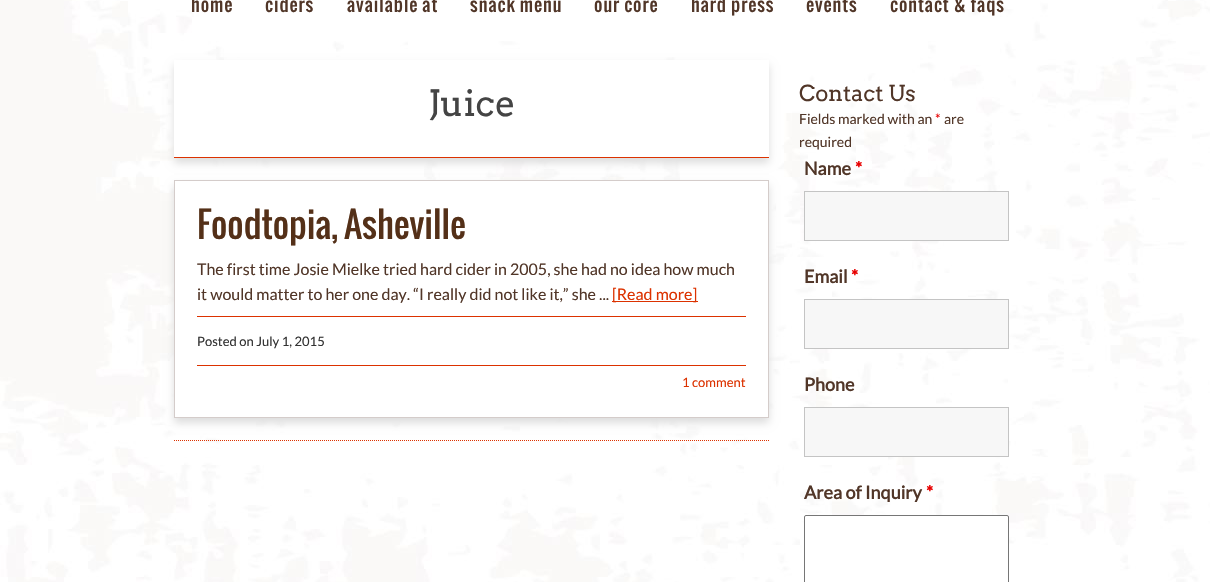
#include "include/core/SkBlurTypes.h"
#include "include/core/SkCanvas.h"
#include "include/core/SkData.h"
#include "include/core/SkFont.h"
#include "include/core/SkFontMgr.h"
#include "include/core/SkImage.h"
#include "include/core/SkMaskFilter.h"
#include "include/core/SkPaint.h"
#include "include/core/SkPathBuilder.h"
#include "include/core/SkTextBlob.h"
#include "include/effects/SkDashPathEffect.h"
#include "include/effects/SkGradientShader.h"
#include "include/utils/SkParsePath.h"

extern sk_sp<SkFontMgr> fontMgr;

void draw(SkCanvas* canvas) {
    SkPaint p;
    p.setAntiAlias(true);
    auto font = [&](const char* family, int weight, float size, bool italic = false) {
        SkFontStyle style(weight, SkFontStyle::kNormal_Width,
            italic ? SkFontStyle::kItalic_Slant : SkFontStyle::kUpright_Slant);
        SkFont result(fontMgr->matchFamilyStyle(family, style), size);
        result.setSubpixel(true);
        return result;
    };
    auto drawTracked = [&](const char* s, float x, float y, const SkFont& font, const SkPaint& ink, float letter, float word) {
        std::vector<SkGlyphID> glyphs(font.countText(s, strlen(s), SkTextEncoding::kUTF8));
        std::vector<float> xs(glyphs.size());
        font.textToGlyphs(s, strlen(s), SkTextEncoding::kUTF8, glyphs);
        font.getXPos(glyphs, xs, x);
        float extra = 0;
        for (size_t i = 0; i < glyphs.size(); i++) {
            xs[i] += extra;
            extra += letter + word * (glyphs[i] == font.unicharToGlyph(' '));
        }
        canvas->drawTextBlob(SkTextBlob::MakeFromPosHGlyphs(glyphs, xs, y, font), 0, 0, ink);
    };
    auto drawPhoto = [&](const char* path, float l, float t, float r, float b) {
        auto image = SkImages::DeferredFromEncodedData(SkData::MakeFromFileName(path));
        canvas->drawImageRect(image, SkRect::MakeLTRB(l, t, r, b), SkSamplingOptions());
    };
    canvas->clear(0xFFFFFFFF);
    drawPhoto("media/1.png", 0, 0, 1210, 582);
    auto font1 = font("Oswald", 400, 18);
    p.setColor(0xFF513628);
    {
        const struct { const char* s; float x, y; } items[] = {
            {"home", 191, 12},
            {"ciders", 265, 12},
            {"available at", 347, 12},
            {"snack menu", 470, 12},
            {"our core", 594, 12},
            {"hard press", 691, 12},
            {"events", 806, 12},
            {"contact & faqs", 890, 12},
        };
        for (auto [s, x, y] : items) {
            drawTracked(s, x, y, font1, p, 1, 0);
        }
    }
    p.setColor(0xFFDDDDDD);
    p.setMaskFilter(SkMaskFilter::MakeBlur(kNormal_SkBlurStyle, 4));
    canvas->drawRect(SkRect::MakeLTRB(174, 65, 769, 163), p);
    p.setMaskFilter(nullptr);
    p.setColor(0xFFFFFFFF);
    canvas->drawRect(SkRect::MakeLTRB(174, 60, 769, 157), p);
    p.setColor(0xFFDC3200);
    canvas->drawRect(SkRect::MakeLTRB(174, 157, 769, 158), p);
    auto font2 = font("Arvo", 400, 36);
    p.setColor(0xFF444444);
    canvas->drawString("Juice", 428, 116, font2, p);
    p.setColor(0xFFDDDDDD);
    p.setMaskFilter(SkMaskFilter::MakeBlur(kNormal_SkBlurStyle, 4));
    canvas->drawRect(SkRect::MakeLTRB(174, 185, 769, 423), p);
    p.setMaskFilter(nullptr);
    p.setColor(0xFFFFFFFF);
    canvas->drawRect(SkRect::MakeLTRB(174.5f, 180.5f, 768.5f, 417.5f), p);
    p.setStyle(SkPaint::kStroke_Style);
    p.setStrokeWidth(1);
    p.setColor(0xFFD4CCCA);
    canvas->drawRect(SkRect::MakeLTRB(174.5f, 180.5f, 768.5f, 417.5f), p);
    auto font3 = font("Oswald", 400, 35);
    p.setStyle(SkPaint::kFill_Style);
    p.setColor(0xFF543018);
    canvas->drawString("Foodtopia, Asheville", 197, 239, font3, p);
    auto font4 = font("Lato", 400, 16);
    p.setColor(0xFF513628);
    canvas->drawString("The first time Josie Mielke tried hard cider in 2005, she had no idea how much", 197, 275, font4, p);
    canvas->drawString("it would matter to her one day. “I really did not like it,” she ...", 197, 300, font4, p);
    p.setColor(0xFFDC3200);
    canvas->drawRect(SkRect::MakeLTRB(612, 301, 698, 302), p);
    canvas->drawString("[Read more]", 612, 300, font4, p);
    canvas->drawRect(SkRect::MakeLTRB(197, 316, 746, 317), p);
    canvas->drawRect(SkRect::MakeLTRB(197, 365, 746, 366), p);
    auto font5 = font("Lato", 400, 13);
    p.setColor(0xFF333333);
    canvas->drawString("Posted on July 1, 2015", 197, 346, font5, p);
    p.setColor(0xFFDC3200);
    canvas->drawString("1 comment", 682, 387, font5, p);
    p.setStyle(SkPaint::kStroke_Style);
    p.setPathEffect(SkDashPathEffect::Make({{1, 1}}, 0));
    canvas->drawPath(SkPathBuilder().moveTo(174, 440.5f).lineTo(769, 440.5f).detach(), p);
    p.setPathEffect(nullptr);
    auto font6 = font("Arvo", 400, 22);
    p.setStyle(SkPaint::kFill_Style);
    p.setColor(0xFF513628);
    canvas->drawString("Contact Us", 799, 101, font6, p);
    auto font7 = font("Lato", 400, 14);
    canvas->drawString("Fields marked with an", 799, 124, font7, p);
    p.setColor(0xFFE80000);
    canvas->drawString("*", 935, 124, font7, p);
    p.setColor(0xFF513628);
    canvas->drawString("are", 944, 124, font7, p);
    canvas->drawString("required", 799, 147, font7, p);
    auto font8 = font("Lato", 700, 18);
    canvas->drawString("Name", 804, 175, font8, p);
    p.setColor(0xFFE80000);
    canvas->drawString("*", 855, 175, font8, p);
    p.setColor(0xFFF7F7F7);
    canvas->drawRect(SkRect::MakeLTRB(804.5f, 191.5f, 1008.5f, 240.5f), p);
    p.setStyle(SkPaint::kStroke_Style);
    p.setColor(0xFFC4C4C4);
    canvas->drawRect(SkRect::MakeLTRB(804.5f, 191.5f, 1008.5f, 240.5f), p);
    p.setStyle(SkPaint::kFill_Style);
    p.setColor(0xFF513628);
    canvas->drawString("Email", 804, 283, font8, p);
    p.setColor(0xFFE80000);
    canvas->drawString("*", 851, 283, font8, p);
    p.setColor(0xFFF7F7F7);
    canvas->drawRect(SkRect::MakeLTRB(804.5f, 299.5f, 1008.5f, 348.5f), p);
    p.setStyle(SkPaint::kStroke_Style);
    p.setColor(0xFFC4C4C4);
    canvas->drawRect(SkRect::MakeLTRB(804.5f, 299.5f, 1008.5f, 348.5f), p);
    p.setStyle(SkPaint::kFill_Style);
    p.setColor(0xFF513628);
    canvas->drawString("Phone", 804, 391, font8, p);
    p.setColor(0xFFF7F7F7);
    canvas->drawRect(SkRect::MakeLTRB(804.5f, 407.5f, 1008.5f, 456.5f), p);
    p.setStyle(SkPaint::kStroke_Style);
    p.setColor(0xFFC4C4C4);
    canvas->drawRect(SkRect::MakeLTRB(804.5f, 407.5f, 1008.5f, 456.5f), p);
    p.setStyle(SkPaint::kFill_Style);
    p.setColor(0xFF513628);
    canvas->drawString("Area of Inquiry", 804, 499, font8, p);
    p.setColor(0xFFE80000);
    canvas->drawString("*", 926, 499, font8, p);
    p.setColor(0xFFFFFFFF);
    canvas->drawRoundRect(SkRect::MakeLTRB(804.5f, 515.5f, 1008.5f, 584.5f), 1.5f, 1.5f, p);
    p.setStyle(SkPaint::kStroke_Style);
    p.setColor(0xFF767676);
    canvas->drawRoundRect(SkRect::MakeLTRB(804.5f, 515.5f, 1008.5f, 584.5f), 1.5f, 1.5f, p);
}
